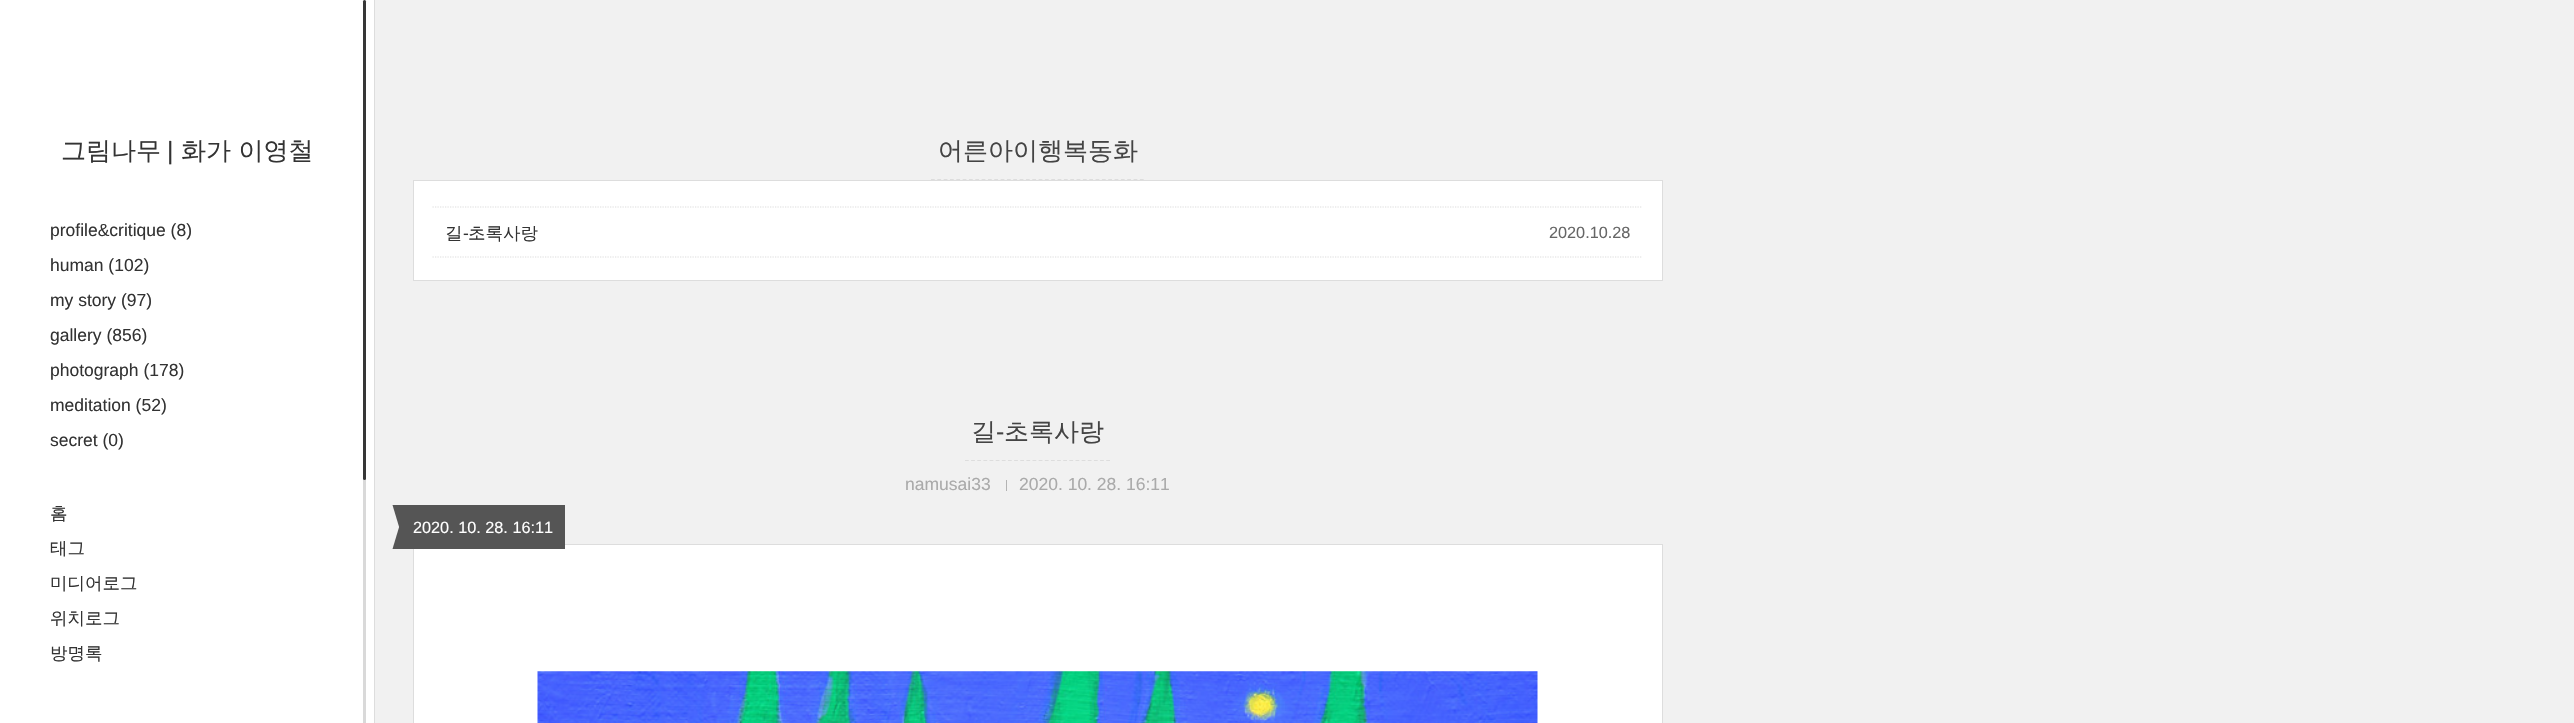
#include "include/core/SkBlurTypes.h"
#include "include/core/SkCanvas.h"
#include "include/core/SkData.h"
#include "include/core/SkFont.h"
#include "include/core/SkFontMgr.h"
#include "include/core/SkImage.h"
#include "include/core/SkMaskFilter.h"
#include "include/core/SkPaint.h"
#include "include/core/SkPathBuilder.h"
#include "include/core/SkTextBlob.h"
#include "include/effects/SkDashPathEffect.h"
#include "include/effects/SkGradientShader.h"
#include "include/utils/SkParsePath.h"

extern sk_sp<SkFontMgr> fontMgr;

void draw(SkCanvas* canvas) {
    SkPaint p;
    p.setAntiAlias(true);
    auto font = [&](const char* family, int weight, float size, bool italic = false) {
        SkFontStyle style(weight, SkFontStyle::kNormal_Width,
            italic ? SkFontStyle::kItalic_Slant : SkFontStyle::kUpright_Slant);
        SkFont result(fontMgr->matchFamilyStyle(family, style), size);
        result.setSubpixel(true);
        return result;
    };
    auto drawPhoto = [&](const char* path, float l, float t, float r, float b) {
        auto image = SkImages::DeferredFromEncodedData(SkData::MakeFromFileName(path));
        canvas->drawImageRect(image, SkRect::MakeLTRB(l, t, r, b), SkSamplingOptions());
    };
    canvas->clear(0xFFF1F1F1);
    p.setColor(0xFFFFFFFF);
    canvas->drawRect(SkRect::MakeLTRB(0, 0, 374, 723), p);
    p.setColor(0xFFDDDDDD);
    canvas->drawRect(SkRect::MakeLTRB(374, 0, 375, 723), p);
    auto font1 = font("WenQuanYi Zen Hei", 500, 25);
    p.setColor(0xFF333333);
    canvas->drawString("그림나무", 61, 159, font1, p);
    auto font2 = font("Liberation Sans", 400, 25);
    canvas->drawString("|", 167, 159, font2, p);
    canvas->drawString("화가 이영철", 181, 159, font1, p);
    auto font3 = font("Liberation Sans", 400, 17.5f);
    {
        const struct { const char* s; float x, y; } items[] = {
            {"profile&critique (8)", 50, 236},
            {"human (102)", 50, 271},
            {"my story (97)", 50, 306},
            {"gallery (856)", 50, 341},
            {"photograph (178)", 50, 376},
            {"meditation (52)", 50, 411},
            {"secret (0)", 50, 446},
        };
        for (auto [s, x, y] : items) {
            canvas->drawString(s, x, y, font3, p);
        }
    }
    auto font4 = font("WenQuanYi Zen Hei", 500, 17.5f);
    {
        const struct { const char* s; float x, y; } items[] = {
            {"홈", 50, 519},
            {"태그", 50, 554},
            {"미디어로그", 50, 589},
            {"위치로그", 50, 624},
            {"방명록", 50, 659},
        };
        for (auto [s, x, y] : items) {
            canvas->drawString(s, x, y, font4, p);
        }
    }
    p.setColor(0xFFD9D9D9);
    canvas->drawRoundRect(SkRect::MakeLTRB(363, 0, 366, 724), 1.5f, 1.5f, p);
    p.setColor(0xBF000000);
    canvas->drawRoundRect(SkRect::MakeLTRB(363, 0, 366, 480), 1.5f, 1.5f, p);
    p.setColor(0xFFFFFFFF);
    canvas->drawRect(SkRect::MakeLTRB(413.5f, 180.5f, 1662.5f, 280.5f), p);
    p.setStyle(SkPaint::kStroke_Style);
    p.setStrokeWidth(1);
    p.setColor(0xFFDDDDDD);
    canvas->drawRect(SkRect::MakeLTRB(413.5f, 180.5f, 1662.5f, 280.5f), p);
    p.setStrokeWidth(1.2f);
    p.setPathEffect(SkDashPathEffect::Make({{3.75f, 2.58f}}, 0));
    canvas->drawPath(SkPathBuilder().moveTo(931, 179.5f).lineTo(1144, 179.5f).detach(), p);
    p.setPathEffect(nullptr);
    p.setStyle(SkPaint::kFill_Style);
    p.setColor(0xFF444444);
    canvas->drawString("어른아이행복동화", 938, 159, font1, p);
    p.setStyle(SkPaint::kStroke_Style);
    p.setColor(0xFFDDDDDD);
    p.setPathEffect(SkDashPathEffect::Make({{1.25f, 1.25f}}, 0));
    canvas->drawPath(SkPathBuilder().moveTo(432.5f, 207).lineTo(1642.5f, 207).detach(), p);
    p.setPathEffect(nullptr);
    p.setPathEffect(SkDashPathEffect::Make({{1.25f, 1.25f}}, 0));
    canvas->drawPath(SkPathBuilder().moveTo(432.5f, 257).lineTo(1642.5f, 257).detach(), p);
    p.setPathEffect(nullptr);
    p.setStyle(SkPaint::kFill_Style);
    p.setColor(0xFF333333);
    canvas->drawString("길", 445, 239, font4, p);
    canvas->drawString("-", 463, 239, font3, p);
    canvas->drawString("초록사랑", 468, 239, font4, p);
    auto font5 = font("Liberation Sans", 400, 16.25f);
    p.setColor(0xFF666666);
    canvas->drawString("2020.10.28", 1549, 238, font5, p);
    p.setStyle(SkPaint::kStroke_Style);
    p.setColor(0xFFDDDDDD);
    p.setPathEffect(SkDashPathEffect::Make({{3.75f, 2.39f}}, 0));
    canvas->drawPath(SkPathBuilder().moveTo(965, 460.5f).lineTo(1110, 460.5f).detach(), p);
    p.setPathEffect(nullptr);
    p.setStyle(SkPaint::kFill_Style);
    p.setColor(0xFF444444);
    canvas->drawString("길", 971, 440, font1, p);
    canvas->drawString("-", 996, 440, font2, p);
    canvas->drawString("초록사랑", 1004, 440, font1, p);
    p.setColor(0xFFAAAAAA);
    canvas->drawString("namusai33", 905, 490, font3, p);
    p.setColor(0xFFB3B3B3);
    canvas->drawRect(SkRect::MakeLTRB(1006, 480, 1007, 491), p);
    p.setColor(0xFFAAAAAA);
    canvas->drawString("2020. 10. 28. 16:11", 1019, 490, font3, p);
    p.setColor(0xFFFFFFFF);
    canvas->drawRect(SkRect::MakeLTRB(413.5f, 544.5f, 1662.5f, 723.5f), p);
    p.setStyle(SkPaint::kStroke_Style);
    p.setStrokeWidth(1);
    p.setColor(0xFFDDDDDD);
    canvas->drawRect(SkRect::MakeLTRB(413.5f, 544.5f, 1662.5f, 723.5f), p);
    p.setStyle(SkPaint::kFill_Style);
    p.setColor(0xFF555555);
    canvas->drawRect(SkRect::MakeLTRB(400, 505, 565, 549), p);
    canvas->drawPath(SkPathBuilder().moveTo(392.5f, 505).lineTo(400, 505).lineTo(400, 530).close().detach(), p);
    p.setColor(0xFFFFFFFF);
    canvas->drawString("2020. 10. 28. 16:11", 413, 533, font5, p);
    p.setColor(0xFF555555);
    canvas->drawPath(SkPathBuilder().moveTo(400, 549).lineTo(392.5f, 549).lineTo(400, 524).close().detach(), p);
    drawPhoto("media/1.png", 537, 671, 1538, 723);
}
